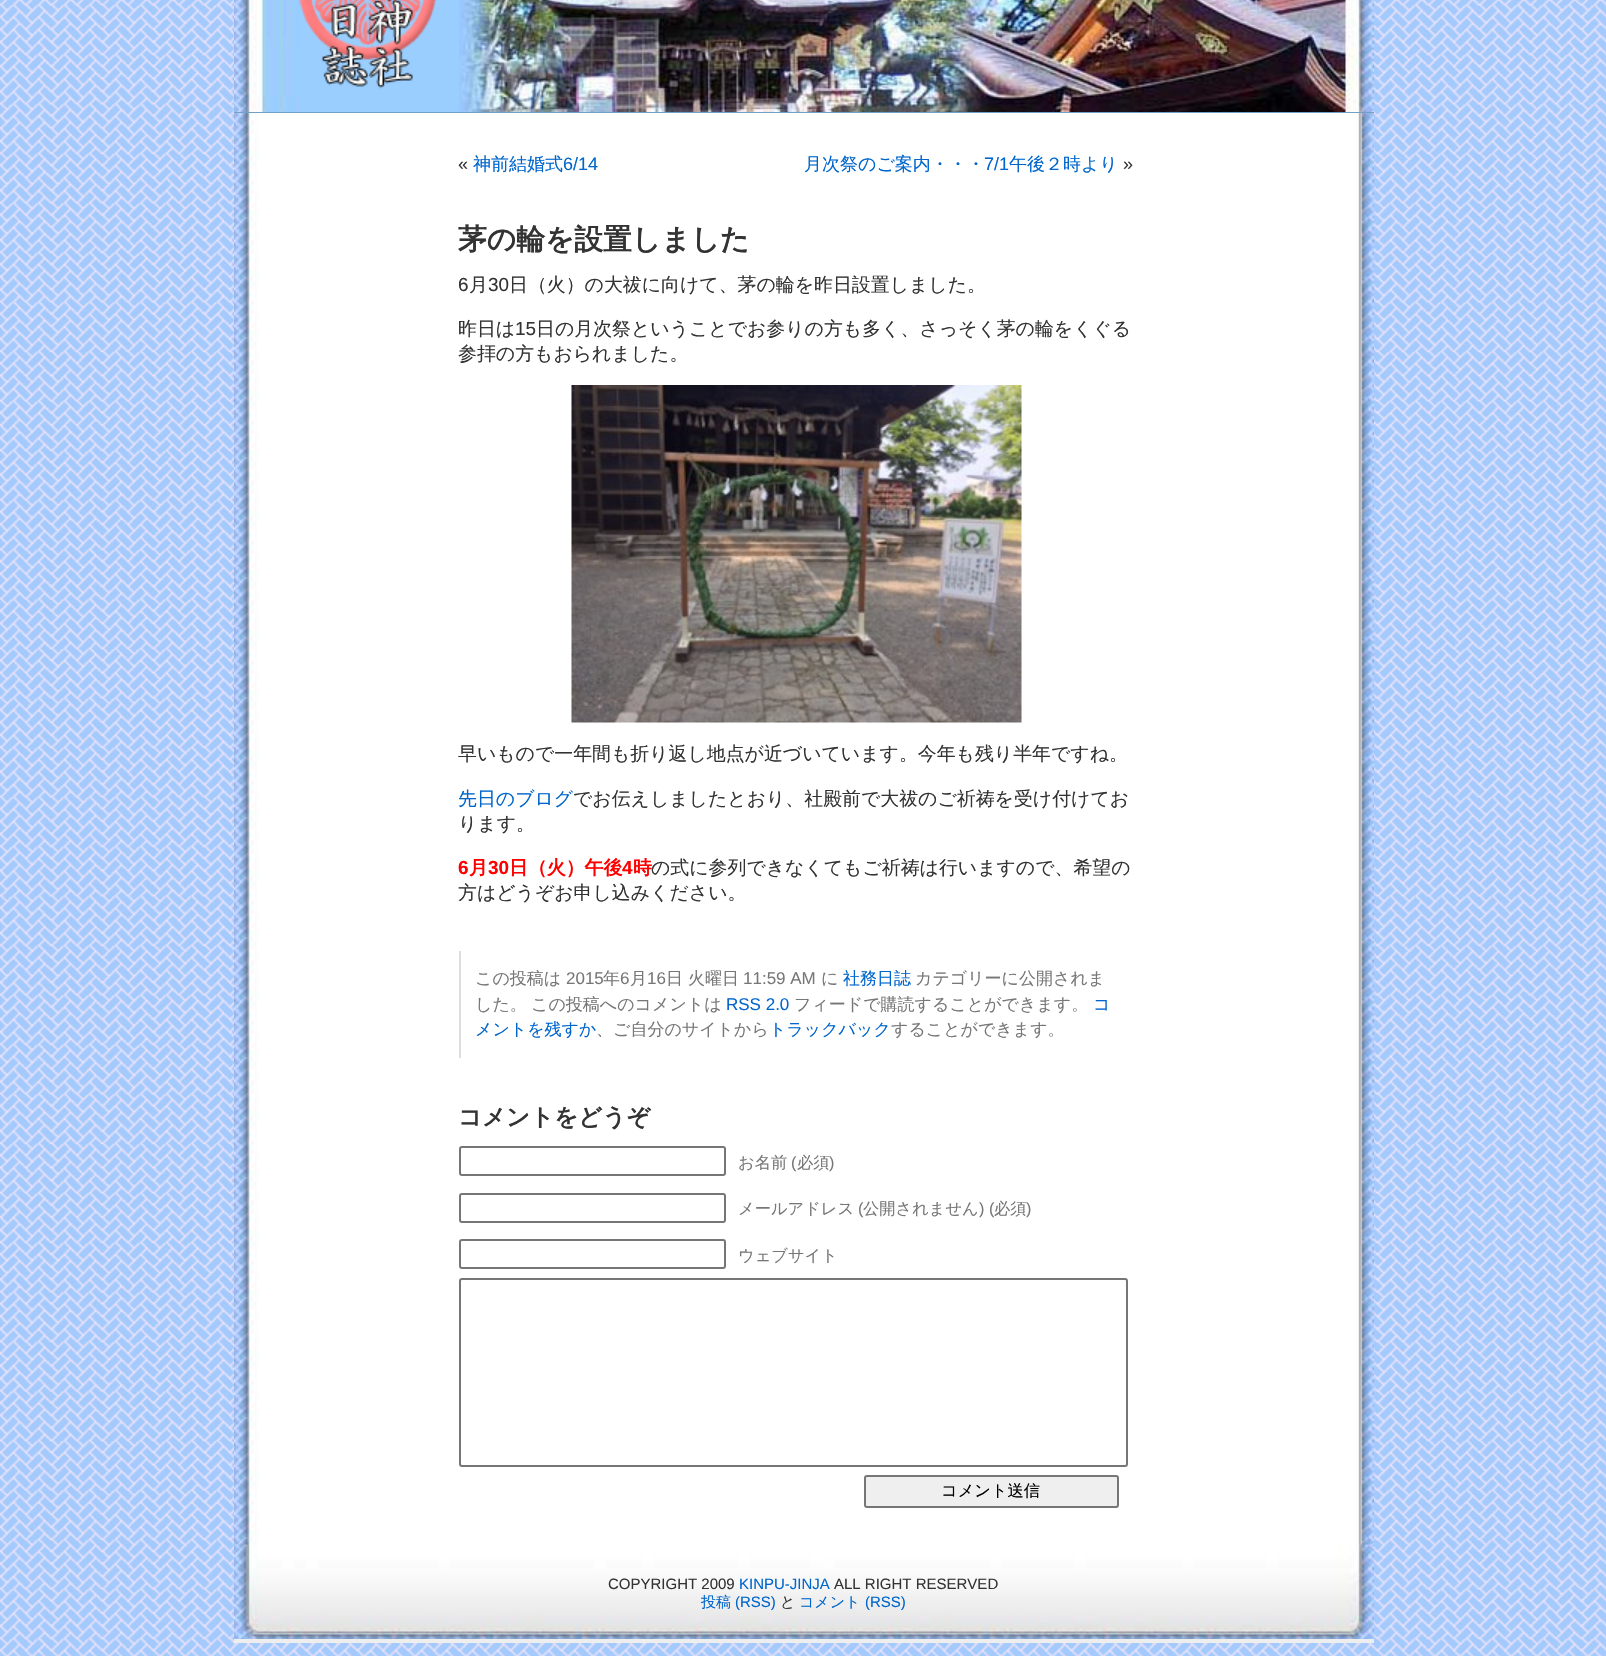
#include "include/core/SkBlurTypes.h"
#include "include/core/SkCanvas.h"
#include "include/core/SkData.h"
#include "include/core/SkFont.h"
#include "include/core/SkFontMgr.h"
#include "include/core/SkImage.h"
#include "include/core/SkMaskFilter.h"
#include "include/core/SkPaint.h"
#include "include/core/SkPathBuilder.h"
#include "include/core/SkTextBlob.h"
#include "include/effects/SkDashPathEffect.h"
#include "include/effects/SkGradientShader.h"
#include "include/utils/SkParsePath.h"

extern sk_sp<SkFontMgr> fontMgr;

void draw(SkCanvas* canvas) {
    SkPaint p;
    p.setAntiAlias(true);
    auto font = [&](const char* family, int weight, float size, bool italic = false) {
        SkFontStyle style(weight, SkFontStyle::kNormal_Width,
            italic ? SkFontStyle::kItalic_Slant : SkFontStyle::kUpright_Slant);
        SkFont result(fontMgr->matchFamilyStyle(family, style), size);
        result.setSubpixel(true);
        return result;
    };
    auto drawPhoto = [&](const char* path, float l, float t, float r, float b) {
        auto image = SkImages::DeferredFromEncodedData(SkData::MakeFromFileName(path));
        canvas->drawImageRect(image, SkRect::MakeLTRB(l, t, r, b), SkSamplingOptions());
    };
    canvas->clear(0xFFFFFFFF);
    drawPhoto("media/1.png", 0, 0, 1606, 1656);
    drawPhoto("media/2.png", 234, 113, 1374, 1545);
    p.setColor(0xFF73A0C5);
    canvas->drawRect(SkRect::MakeLTRB(234, 112, 1374, 113), p);
    drawPhoto("media/3.png", 234, 0, 1374, 112);
    drawPhoto("media/4.png", 279, 0, 459, 112);
    auto font1 = font("Liberation Sans", 400, 18);
    p.setColor(0xFF333333);
    canvas->drawString("«", 458, 170, font1, p);
    auto font2 = font("WenQuanYi Zen Hei", 500, 18);
    p.setColor(0xFF0066CC);
    canvas->drawString("神前結婚式", 473, 170, font2, p);
    canvas->drawString("6/14", 563, 170, font1, p);
    canvas->drawString("月次祭のご案内・・・", 804, 170, font2, p);
    canvas->drawString("7/1", 984, 170, font1, p);
    canvas->drawString("午後２時より", 1009, 170, font2, p);
    p.setColor(0xFF333333);
    canvas->drawString("»", 1123, 170, font1, p);
    auto font3 = font("WenQuanYi Zen Hei", 700, 28.75f);
    canvas->drawString("茅の輪を設置しました", 458, 249, font3, p);
    auto font4 = font("Liberation Sans", 400, 18.9f);
    canvas->drawString("6", 458, 291, font4, p);
    auto font5 = font("WenQuanYi Zen Hei", 500, 18.9f);
    canvas->drawString("月", 469, 291, font5, p);
    canvas->drawString("30", 488, 291, font4, p);
    canvas->drawString("日（火）の大祓に向けて、茅の輪を昨日設置しました。", 509, 291, font5, p);
    canvas->drawString("昨日は", 458, 335, font5, p);
    canvas->drawString("15", 515, 335, font4, p);
    canvas->drawString("日の月次祭ということでお参りの方も多く、さっそく茅の輪をくぐる", 536, 335, font5, p);
    canvas->drawString("参拝の方もおられました。", 458, 360, font5, p);
    drawPhoto("media/5.png", 571, 385, 1022, 723);
    canvas->drawString("早いもので一年間も折り返し地点が近づいています。今年も残り半年ですね。", 458, 760, font5, p);
    p.setColor(0xFF0066CC);
    canvas->drawString("先日のブログ", 458, 805, font5, p);
    p.setColor(0xFF333333);
    canvas->drawString("でお伝えしましたとおり、社殿前で大祓のご祈祷を受け付けてお", 573, 805, font5, p);
    canvas->drawString("ります。", 458, 830, font5, p);
    auto font6 = font("Liberation Sans", 700, 18.9f);
    p.setColor(0xFFFF0000);
    canvas->drawString("6", 458, 874, font6, p);
    auto font7 = font("WenQuanYi Zen Hei", 700, 18.9f);
    canvas->drawString("月", 469, 874, font7, p);
    canvas->drawString("30", 488, 874, font6, p);
    canvas->drawString("日（火）午後", 509, 874, font7, p);
    canvas->drawString("4", 622, 874, font6, p);
    canvas->drawString("時", 633, 874, font7, p);
    p.setColor(0xFF333333);
    canvas->drawString("の式に参列できなくてもご祈祷は行いますので、希望の", 651, 874, font5, p);
    canvas->drawString("方はどうぞお申し込みください。", 458, 899, font5, p);
    p.setColor(0xFFDDDDDD);
    canvas->drawRect(SkRect::MakeLTRB(459, 951, 461, 1058), p);
    auto font8 = font("WenQuanYi Zen Hei", 500, 17);
    p.setColor(0xFF777777);
    canvas->drawString("この投稿は", 475, 984, font8, p);
    auto font9 = font("Liberation Sans", 400, 17);
    canvas->drawString("2015", 566, 984, font9, p);
    canvas->drawString("年", 603, 984, font8, p);
    canvas->drawString("6", 620, 984, font9, p);
    canvas->drawString("月", 630, 984, font8, p);
    canvas->drawString("16", 647, 984, font9, p);
    canvas->drawString("日", 666, 984, font8, p);
    canvas->drawString("火曜日", 688, 984, font8, p);
    canvas->drawString("11:59 AM", 743, 984, font9, p);
    canvas->drawString("に", 821, 984, font8, p);
    p.setColor(0xFF0066CC);
    canvas->drawString("社務日誌", 843, 984, font8, p);
    p.setColor(0xFF777777);
    {
        const struct { const char* s; float x, y; } items[] = {
            {"カテゴリーに公開されま", 915, 984},
            {"した。", 475, 1010},
            {"この投稿へのコメントは", 531, 1010},
        };
        for (auto [s, x, y] : items) {
            canvas->drawString(s, x, y, font8, p);
        }
    }
    p.setColor(0xFF0066CC);
    canvas->drawString("RSS 2.0", 726, 1010, font9, p);
    p.setColor(0xFF777777);
    canvas->drawString("フィードで購読することができます。", 794, 1010, font8, p);
    p.setColor(0xFF0066CC);
    canvas->drawString("コ", 1093, 1010, font8, p);
    canvas->drawString("メントを残すか", 475, 1035, font8, p);
    p.setColor(0xFF777777);
    canvas->drawString("、ご自分のサイトから", 596, 1035, font8, p);
    p.setColor(0xFF0066CC);
    canvas->drawString("トラックバック", 769, 1035, font8, p);
    p.setColor(0xFF777777);
    canvas->drawString("することができます。", 891, 1035, font8, p);
    auto font10 = font("WenQuanYi Zen Hei", 700, 23.5f);
    p.setColor(0xFF333333);
    canvas->drawString("コメントをどうぞ", 458, 1125, font10, p);
    p.setStyle(SkPaint::kStroke_Style);
    p.setStrokeWidth(2);
    p.setColor(0xFF767676);
    canvas->drawRoundRect(SkRect::MakeLTRB(460, 1147, 725, 1175), 2, 2, p);
    auto font11 = font("WenQuanYi Zen Hei", 500, 16.25f);
    p.setStyle(SkPaint::kFill_Style);
    p.setColor(0xFF777777);
    canvas->drawString("お名前", 738, 1168, font11, p);
    auto font12 = font("Liberation Sans", 400, 16.25f);
    canvas->drawString("(", 791, 1168, font12, p);
    canvas->drawString("必須", 797, 1168, font11, p);
    canvas->drawString(")", 829, 1168, font12, p);
    p.setStyle(SkPaint::kStroke_Style);
    p.setColor(0xFF767676);
    canvas->drawRoundRect(SkRect::MakeLTRB(460, 1194, 725, 1222), 2, 2, p);
    p.setStyle(SkPaint::kFill_Style);
    p.setColor(0xFF777777);
    canvas->drawString("メールアドレス", 738, 1214, font11, p);
    canvas->drawString("(", 858, 1214, font12, p);
    canvas->drawString("公開されません", 863, 1214, font11, p);
    canvas->drawString(") (", 979, 1214, font12, p);
    canvas->drawString("必須", 994, 1214, font11, p);
    canvas->drawString(")", 1026, 1214, font12, p);
    p.setStyle(SkPaint::kStroke_Style);
    p.setColor(0xFF767676);
    canvas->drawRoundRect(SkRect::MakeLTRB(460, 1240, 725, 1268), 2, 2, p);
    p.setStyle(SkPaint::kFill_Style);
    p.setColor(0xFF777777);
    canvas->drawString("ウェブサイト", 738, 1261, font11, p);
    p.setStyle(SkPaint::kStroke_Style);
    p.setColor(0xFF767676);
    canvas->drawRoundRect(SkRect::MakeLTRB(460, 1279, 1127, 1466), 2, 2, p);
    p.setStyle(SkPaint::kFill_Style);
    p.setColor(0xFFEFEFEF);
    canvas->drawRoundRect(SkRect::MakeLTRB(865, 1476, 1118, 1507), 2, 2, p);
    p.setStyle(SkPaint::kStroke_Style);
    p.setColor(0xFF767676);
    canvas->drawRoundRect(SkRect::MakeLTRB(865, 1476, 1118, 1507), 2, 2, p);
    p.setStyle(SkPaint::kFill_Style);
    p.setColor(0xFF000000);
    canvas->drawString("コメント送信", 941, 1496, font11, p);
    p.setColor(0xFFEEEEEE);
    canvas->drawRect(SkRect::MakeLTRB(234, 1639, 1374, 1643), p);
    drawPhoto("media/6.png", 234, 1544, 1374, 1639);
    auto font13 = font("Liberation Sans", 400, 15);
    p.setColor(0xFF333333);
    canvas->drawString("COPYRIGHT 2009", 608, 1589, font13, p);
    p.setColor(0xFF0066CC);
    canvas->drawString("KINPU-JINJA", 739, 1589, font13, p);
    p.setColor(0xFF333333);
    canvas->drawString("ALL RIGHT RESERVED", 834, 1589, font13, p);
    auto font14 = font("WenQuanYi Zen Hei", 500, 15);
    p.setColor(0xFF0066CC);
    canvas->drawString("投稿", 701, 1607, font14, p);
    canvas->drawString("(RSS)", 735, 1607, font13, p);
    p.setColor(0xFF333333);
    canvas->drawString("と", 780, 1607, font14, p);
    p.setColor(0xFF0066CC);
    canvas->drawString("コメント", 799, 1607, font14, p);
    canvas->drawString("(RSS)", 865, 1607, font13, p);
}
